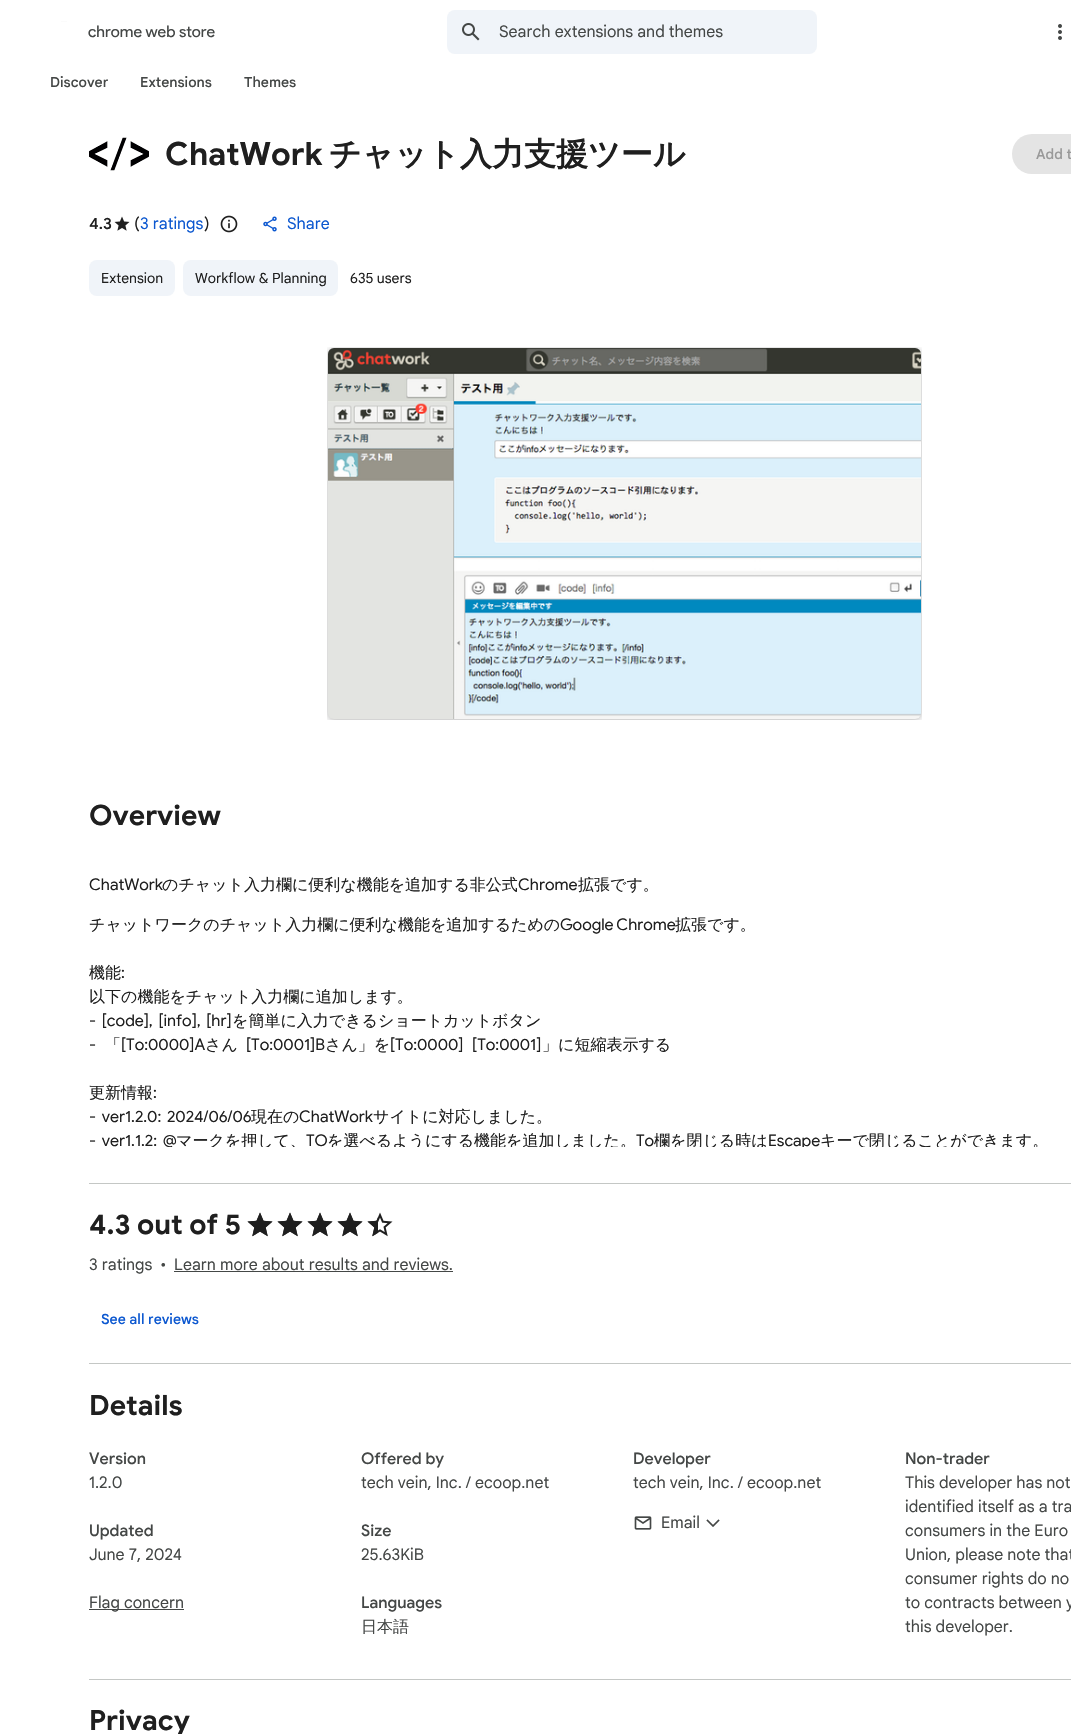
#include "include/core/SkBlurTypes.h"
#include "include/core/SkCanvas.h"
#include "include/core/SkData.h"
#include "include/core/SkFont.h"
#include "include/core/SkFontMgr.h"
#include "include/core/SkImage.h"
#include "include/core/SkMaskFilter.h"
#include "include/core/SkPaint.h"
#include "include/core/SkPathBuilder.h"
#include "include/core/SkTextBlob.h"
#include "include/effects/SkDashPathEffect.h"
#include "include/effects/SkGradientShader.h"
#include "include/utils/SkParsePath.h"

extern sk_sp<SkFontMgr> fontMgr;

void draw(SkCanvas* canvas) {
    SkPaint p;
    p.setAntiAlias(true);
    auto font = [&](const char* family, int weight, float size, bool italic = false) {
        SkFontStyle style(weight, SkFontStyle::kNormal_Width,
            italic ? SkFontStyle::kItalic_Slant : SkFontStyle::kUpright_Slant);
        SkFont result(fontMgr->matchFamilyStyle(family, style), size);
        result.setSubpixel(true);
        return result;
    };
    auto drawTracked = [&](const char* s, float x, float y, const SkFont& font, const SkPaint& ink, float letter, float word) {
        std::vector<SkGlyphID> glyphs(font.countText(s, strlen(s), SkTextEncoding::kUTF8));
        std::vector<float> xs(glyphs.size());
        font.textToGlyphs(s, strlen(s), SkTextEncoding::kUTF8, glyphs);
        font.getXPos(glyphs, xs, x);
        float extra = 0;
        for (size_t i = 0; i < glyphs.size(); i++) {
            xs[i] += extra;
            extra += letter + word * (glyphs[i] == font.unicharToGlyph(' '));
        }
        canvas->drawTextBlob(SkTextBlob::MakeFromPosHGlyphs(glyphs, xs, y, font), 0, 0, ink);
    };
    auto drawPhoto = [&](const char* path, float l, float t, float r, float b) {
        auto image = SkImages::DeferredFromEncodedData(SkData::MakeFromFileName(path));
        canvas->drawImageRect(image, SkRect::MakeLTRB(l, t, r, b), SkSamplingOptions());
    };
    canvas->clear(0xFFFFFFFF);
    drawPhoto("media/1.png", 61, 21, 67, 22);
    auto font1 = font("Product Sans", 400, 16);
    p.setColor(0xFF444746);
    canvas->drawString("chrome web store", 88, 37, font1, p);
    p.setColor(0xFFF0F4F9);
    canvas->drawRoundRect(SkRect::MakeLTRB(447, 10, 817, 54), 8, 8, p);
    drawPhoto("media/2.png", 462, 23, 480, 41);
    auto font2 = font("Google Sans", 400, 16);
    p.setColor(0xFF444746);
    canvas->drawString("Search extensions and themes", 499, 37, font2, p);
    drawPhoto("media/3.png", 1058, 24, 1062, 40);
    auto font3 = font("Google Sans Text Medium", 500, 14);
    {
        const struct { const char* s; float x, y; } items[] = {
            {"Discover", 50, 87},
            {"Extensions", 140, 87},
            {"Themes", 244, 87},
        };
        for (auto [s, x, y] : items) {
            canvas->drawString(s, x, y, font3, p);
        }
    }
    drawPhoto("media/4.png", 89, 137, 149, 171);
    auto font4 = font("Google Sans", 700, 32);
    p.setColor(0xFF1F1F1F);
    canvas->drawString("ChatWork", 165, 165, font4, p);
    auto font5 = font("WenQuanYi Zen Hei", 700, 32);
    canvas->drawString("チャット入力支援ツール", 329, 165, font5, p);
    p.setColor(0xFFE4E4E4);
    canvas->drawRoundRect(SkRect::MakeLTRB(1012, 134, 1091, 174), 20, 20, p);
    p.setColor(0xFF999999);
    canvas->drawString("Add t", 1036, 159, font3, p);
    auto font6 = font("Google Sans", 500, 16);
    p.setColor(0xFF1F1F1F);
    canvas->drawString("4.3", 89, 229, font6, p);
    drawPhoto("media/5.png", 114, 216, 130, 231);
    canvas->drawString("(", 134, 229, font2, p);
    p.setColor(0xFF0B57D0);
    canvas->drawString("3 ratings", 140, 229, font2, p);
    p.setColor(0xFF1F1F1F);
    canvas->drawString(")", 204, 229, font2, p);
    drawPhoto("media/6.png", 220, 215, 238, 233);
    drawPhoto("media/7.png", 263, 216, 277, 232);
    auto font7 = font("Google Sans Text", 400, 16);
    p.setColor(0xFF0B57D0);
    canvas->drawString("Share", 287, 229, font7, p);
    p.setColor(0xFFF0F4F9);
    canvas->drawRoundRect(SkRect::MakeLTRB(89, 260, 175, 296), 8, 8, p);
    auto font8 = font("Google Sans", 400, 14);
    p.setColor(0xFF1F1F1F);
    canvas->drawString("Extension", 101, 283, font8, p);
    p.setColor(0xFFF0F4F9);
    canvas->drawRoundRect(SkRect::MakeLTRB(183, 260, 338, 296), 8, 8, p);
    p.setColor(0xFF1F1F1F);
    canvas->drawString("Workflow & Planning", 195, 283, font8, p);
    canvas->drawString("635 users", 350, 283, font8, p);
    drawPhoto("media/8.png", 327, 347, 922, 720);
    p.setColor(0xFFC4C7C5);
    canvas->drawRect(SkRect::MakeLTRB(89, 1183, 1071, 1184), p);
    auto font9 = font("Google Sans", 700, 28);
    p.setColor(0xFF1F1F1F);
    canvas->drawString("Overview", 89, 825, font9, p);
    auto font10 = font("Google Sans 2", 400, 16);
    canvas->drawString("ChatWork", 89, 890, font10, p);
    auto font11 = font("WenQuanYi Zen Hei", 500, 16);
    canvas->drawString("のチャット入力欄に便利な機能を追加する非公式", 162, 890, font11, p);
    canvas->drawString("Chrome", 518, 890, font10, p);
    canvas->drawString("拡張です。", 578, 890, font11, p);
    canvas->drawString("チャットワークのチャット入力欄に便利な機能を追加するための", 89, 930, font11, p);
    drawTracked("Google Chrome", 560, 930, font10, p, 0, -1);
    canvas->drawString("拡張です。", 675, 930, font11, p);
    canvas->drawString("機能", 89, 978, font11, p);
    canvas->drawString(":", 121, 978, font10, p);
    canvas->drawString("以下の機能をチャット入力欄に追加します。", 89, 1002, font11, p);
    drawTracked("- [code], [info], [hr]", 89, 1026, font10, p, 0, 2);
    canvas->drawString("を簡単に入力できるショートカットボタン", 232, 1026, font11, p);
    canvas->drawString("-", 89, 1050, font10, p);
    canvas->drawString("「", 105, 1050, font11, p);
    canvas->drawString("[To:0000]A", 121, 1050, font10, p);
    canvas->drawString("さん", 205, 1050, font11, p);
    canvas->drawString("[To:0001]B", 246, 1050, font10, p);
    canvas->drawString("さん」を", 325, 1050, font11, p);
    drawTracked("[To:0000] [To:0001]", 390, 1050, font10, p, 0, 5);
    canvas->drawString("」に短縮表示する", 542, 1050, font11, p);
    canvas->drawString("更新情報", 89, 1098, font11, p);
    canvas->drawString(":", 153, 1098, font10, p);
    drawTracked("- ver1.2.0: 2024/06/06", 89, 1122, font10, p, 0, 2);
    canvas->drawString("現在の", 251, 1122, font11, p);
    canvas->drawString("ChatWork", 299, 1122, font10, p);
    canvas->drawString("サイトに対応しました。", 373, 1122, font11, p);
    canvas->save();
    canvas->clipRect(SkRect::MakeLTRB(89, 857, 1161, 1147));
    drawTracked("- ver1.1.2: @", 89, 1146, font10, p, 0, 2);
    canvas->drawString("マークを押して、", 176, 1146, font11, p);
    canvas->restore();
    canvas->drawString("TO", 306, 1146, font10, p);
    canvas->save();
    canvas->clipRect(SkRect::MakeLTRB(89, 857, 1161, 1147));
    canvas->drawString("を選べるようにする機能を追加しました。", 327, 1146, font11, p);
    canvas->restore();
    canvas->drawString("To", 636, 1146, font10, p);
    canvas->save();
    canvas->clipRect(SkRect::MakeLTRB(89, 857, 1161, 1147));
    canvas->drawString("欄を閉じる時は", 654, 1146, font11, p);
    canvas->drawString("Escape", 768, 1146, font10, p);
    canvas->drawString("キーで閉じることができます。", 820, 1146, font11, p);
    canvas->restore();
    p.setColor(0xFFC4C7C5);
    canvas->drawRect(SkRect::MakeLTRB(89, 1363, 1071, 1364), p);
    p.setColor(0xFF1F1F1F);
    canvas->drawString("4.3 out of 5", 89, 1234, font9, p);
    drawPhoto("media/9.png", 247, 1212, 273, 1237);
    drawPhoto("media/9.png", 277, 1212, 303, 1237);
    drawPhoto("media/9.png", 307, 1212, 333, 1237);
    drawPhoto("media/9.png", 337, 1212, 363, 1237);
    drawPhoto("media/9.png", 367, 1212, 393, 1237);
    drawPhoto("media/10.png", 247, 1212, 273, 1237);
    drawPhoto("media/10.png", 277, 1212, 303, 1237);
    drawPhoto("media/10.png", 307, 1212, 333, 1237);
    drawPhoto("media/10.png", 337, 1212, 363, 1237);
    drawPhoto("media/11.png", 367, 1217, 378, 1237);
    p.setColor(0xFF444746);
    {
        const struct { const char* s; float x, y; } items[] = {
            {"3 ratings", 89, 1270},
            {"•", 160, 1270},
            {"Learn more about results and reviews.", 174, 1270},
        };
        for (auto [s, x, y] : items) {
            canvas->drawString(s, x, y, font2, p);
        }
    }
    canvas->drawRect(SkRect::MakeLTRB(174, 1271, 453, 1272), p);
    p.setColor(0xFF0B57D0);
    canvas->drawString("See all reviews", 101, 1324, font3, p);
    p.setColor(0xFFC4C7C5);
    canvas->drawRect(SkRect::MakeLTRB(89, 1679, 1071, 1680), p);
    p.setColor(0xFF1F1F1F);
    canvas->drawString("Details", 89, 1415, font9, p);
    p.setColor(0xFF444746);
    canvas->drawString("Version", 89, 1464, font6, p);
    canvas->drawString("1.2.0", 89, 1488, font2, p);
    canvas->drawString("Offered by", 361, 1464, font6, p);
    canvas->drawString("tech vein, Inc. / ecoop.net", 361, 1488, font2, p);
    canvas->drawString("Developer", 633, 1464, font6, p);
    canvas->drawString("tech vein, Inc. / ecoop.net", 633, 1488, font2, p);
    drawPhoto("media/12.png", 634, 1516, 652, 1530);
    canvas->drawString("Email", 661, 1528, font2, p);
    drawPhoto("media/13.png", 706, 1519, 720, 1527);
    canvas->drawString("Non-trader", 905, 1464, font6, p);
    {
        const struct { const char* s; float x, y; } items[] = {
            {"This developer has not", 905, 1488},
            {"identified itself as a tra", 905, 1512},
            {"consumers in the Euro", 905, 1536},
            {"Union, please note that", 905, 1560},
            {"consumer rights do no", 905, 1584},
            {"to contracts between y", 905, 1608},
            {"this developer.", 905, 1632},
        };
        for (auto [s, x, y] : items) {
            canvas->drawString(s, x, y, font2, p);
        }
    }
    canvas->drawString("Updated", 89, 1536, font6, p);
    canvas->drawString("June 7, 2024", 89, 1560, font2, p);
    canvas->drawString("Size", 361, 1536, font6, p);
    canvas->drawString("25.63KiB", 361, 1560, font2, p);
    canvas->drawRect(SkRect::MakeLTRB(89, 1609, 184, 1610), p);
    canvas->drawString("Flag concern", 89, 1608, font2, p);
    canvas->drawString("Languages", 361, 1608, font6, p);
    canvas->drawString("日本語", 361, 1632, font11, p);
    p.setColor(0xFF1F1F1F);
    canvas->drawString("Privacy", 89, 1730, font9, p);
}
